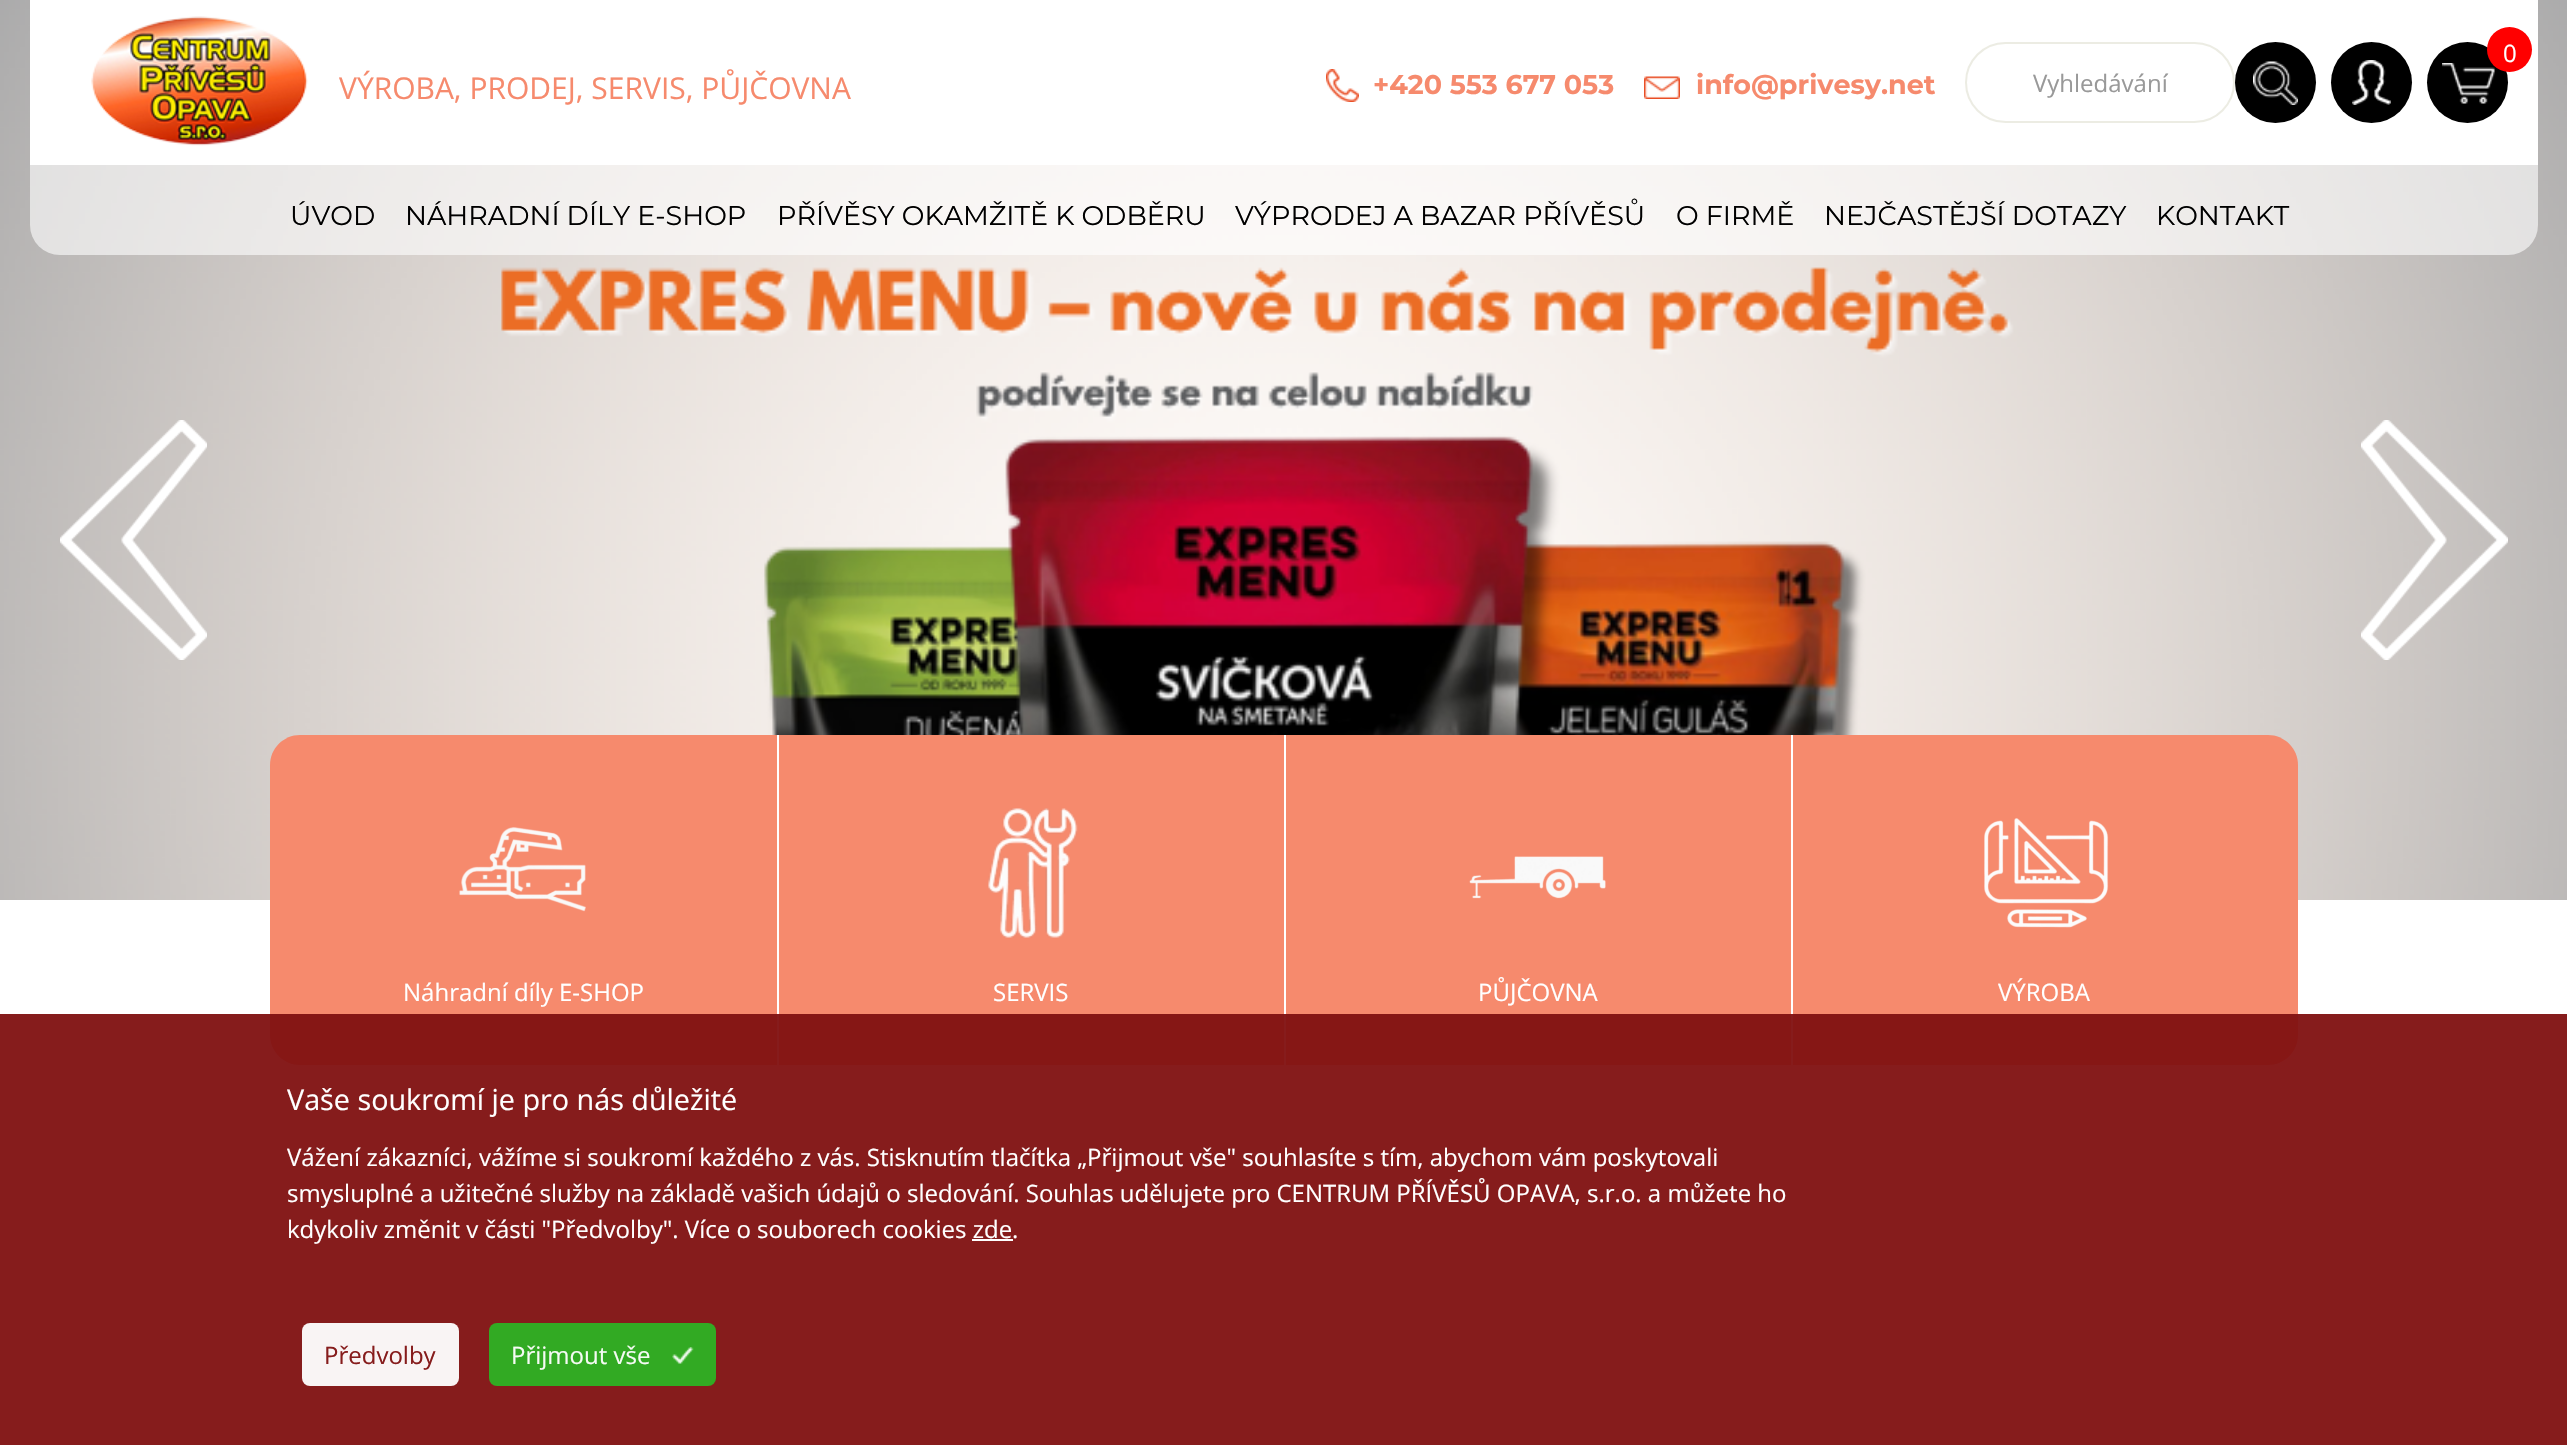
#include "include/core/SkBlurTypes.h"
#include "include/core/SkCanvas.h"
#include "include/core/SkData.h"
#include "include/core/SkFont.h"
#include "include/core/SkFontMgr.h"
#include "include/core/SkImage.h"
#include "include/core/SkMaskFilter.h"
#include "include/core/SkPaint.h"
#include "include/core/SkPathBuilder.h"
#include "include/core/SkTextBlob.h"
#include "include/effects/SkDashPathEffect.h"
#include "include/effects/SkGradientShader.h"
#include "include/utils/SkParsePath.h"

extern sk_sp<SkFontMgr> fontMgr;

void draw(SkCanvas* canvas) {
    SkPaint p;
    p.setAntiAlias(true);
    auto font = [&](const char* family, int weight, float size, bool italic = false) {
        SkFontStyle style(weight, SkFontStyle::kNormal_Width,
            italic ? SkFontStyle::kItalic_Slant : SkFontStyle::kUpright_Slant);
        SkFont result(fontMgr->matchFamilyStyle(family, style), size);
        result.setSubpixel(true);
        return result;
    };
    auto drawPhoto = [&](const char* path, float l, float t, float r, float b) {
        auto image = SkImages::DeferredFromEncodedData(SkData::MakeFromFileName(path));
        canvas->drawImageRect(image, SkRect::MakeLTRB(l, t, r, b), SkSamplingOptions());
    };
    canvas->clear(0xFFFFFFFF);
    drawPhoto("media/1.png", 0, 0, 2567, 900);
    p.setColor(0xFFFFFFFF);
    canvas->drawRect(SkRect::MakeLTRB(30, 0, 2538, 165), p);
    drawPhoto("media/2.png", 91, 16, 308, 146);
    p.setColor(0xFF000000);
    canvas->drawCircle(2275.5f, 82.5f, 40.5f, p);
    drawPhoto("media/3.png", 2253, 61, 2298, 105);
    canvas->drawCircle(2371.5f, 82.5f, 40.5f, p);
    drawPhoto("media/4.png", 2352, 60, 2391, 105);
    canvas->drawCircle(2467.5f, 82.5f, 40.5f, p);
    drawPhoto("media/5.png", 2442, 63, 2495, 104);
    p.setColor(0xFFFF0000);
    canvas->drawCircle(2509.5f, 49.5f, 22.5f, p);
    auto font1 = font("Open Sans", 400, 24);
    p.setColor(0xFFFFFFFF);
    canvas->drawString("0", 2503, 62, font1, p);
    auto font2 = font("Open Sans", 400, 30);
    p.setColor(0xFFF68A6D);
    canvas->drawString("VÝROBA, PRODEJ, SERVIS, PŮJČOVNA", 339, 99, font2, p);
    drawPhoto("media/6.png", 1326, 69, 1359, 102);
    auto font3 = font("Montserrat", 700, 27);
    canvas->drawString("+420 553 677 053", 1373, 94, font3, p);
    drawPhoto("media/7.png", 1644, 76, 1680, 99);
    canvas->drawString("info@privesy.net", 1696, 94, font3, p);
    p.setStyle(SkPaint::kStroke_Style);
    p.setStrokeWidth(2);
    p.setColor(0xFFECECE3);
    canvas->drawRoundRect(SkRect::MakeLTRB(1966, 43, 2234, 122), 39.5f, 39.5f, p);
    p.setStyle(SkPaint::kFill_Style);
    p.setColor(0xFF999999);
    canvas->drawString("Vyhledávání", 2033, 92, font1, p);
    drawPhoto("media/8.png", 30, 165, 2538, 255);
    auto font4 = font("Montserrat", 400, 27);
    p.setColor(0xFF000000);
    {
        const struct { const char* s; float x, y; } items[] = {
            {"ÚVOD", 290, 225},
            {"NÁHRADNÍ DÍLY E-SHOP", 405, 225},
            {"PŘÍVĚSY OKAMŽITĚ K ODBĚRU", 777, 225},
            {"VÝPRODEJ A BAZAR PŘÍVĚSŮ", 1235, 225},
            {"O FIRMĚ", 1676, 225},
            {"NEJČASTĚJŠÍ DOTAZY", 1824, 225},
            {"KONTAKT", 2156, 225},
        };
        for (auto [s, x, y] : items) {
            canvas->drawString(s, x, y, font4, p);
        }
    }
    drawPhoto("media/9.png", 60, 420, 207, 660);
    drawPhoto("media/10.png", 2361, 420, 2508, 660);
    p.setColor(0xFFF68A6D);
    canvas->drawPath(SkPathBuilder().moveTo(300, 735).lineTo(777, 735).lineTo(777, 1065).lineTo(300, 1065).cubicTo(283.5f, 1065, 270, 1051.5f, 270, 1035).lineTo(270, 765).cubicTo(270, 748.5f, 283.5f, 735, 300, 735).close().detach(), p);
    drawPhoto("media/11.png", 459, 827, 586, 912);
    p.setColor(0xFFFFFFFF);
    canvas->drawString("Náhradní díly E-SHOP", 403, 1001, font1, p);
    p.setColor(0xFFF68A6D);
    canvas->drawRect(SkRect::MakeLTRB(779, 735, 1284, 1065), p);
    p.setColor(0xFFFFFFFF);
    canvas->drawRect(SkRect::MakeLTRB(777, 735, 779, 900), p);
    drawPhoto("media/12.png", 988, 808, 1078, 938);
    canvas->drawString("SERVIS", 993, 1001, font1, p);
    p.setColor(0xFFF68A6D);
    canvas->drawRect(SkRect::MakeLTRB(1286, 735, 1791, 1065), p);
    p.setColor(0xFFFFFFFF);
    canvas->drawRect(SkRect::MakeLTRB(1284, 735, 1286, 900), p);
    drawPhoto("media/13.png", 1469, 856, 1606, 899);
    canvas->drawString("PŮJČOVNA", 1478, 1001, font1, p);
    p.setColor(0xFFF68A6D);
    canvas->drawPath(SkPathBuilder().moveTo(1791, 735).lineTo(2268, 735).cubicTo(2284.5f, 735, 2298, 748.5f, 2298, 765).lineTo(2298, 1035).cubicTo(2298, 1051.5f, 2284.5f, 1065, 2268, 1065).lineTo(1791, 1065).close().detach(), p);
    p.setColor(0xFFFFFFFF);
    canvas->drawRect(SkRect::MakeLTRB(1791, 735, 1793, 1065), p);
    drawPhoto("media/14.png", 1984, 818, 2109, 928);
    canvas->drawString("VÝROBA", 1998, 1001, font1, p);
    p.setColor(0xF2801010);
    canvas->drawRect(SkRect::MakeLTRB(0, 1014, 2567, 1445), p);
    auto font5 = font("Open Sans", 400, 28.75f);
    p.setColor(0xFFFFFFFF);
    canvas->drawString("Vaše soukromí je pro nás důležité", 287, 1110, font5, p);
    {
        const struct { const char* s; float x, y; } items[] = {
            {"Vážení zákazníci, vážíme si soukromí každého z vás. Stisknutím tlačítka „Přijmout vše\" souhlasíte s tím, abychom vám poskytovali", 287, 1166},
            {"smysluplné a užitečné služby na základě vašich údajů o sledování. Souhlas udělujete pro CENTRUM PŘÍVĚSŮ OPAVA, s.r.o. a můžete ho", 287, 1202},
            {"kdykoliv změnit v části \"Předvolby\". Více o souborech cookies zde.", 287, 1238},
        };
        for (auto [s, x, y] : items) {
            canvas->drawString(s, x, y, font1, p);
        }
    }
    canvas->drawRect(SkRect::MakeLTRB(972, 1239, 1013, 1241), p);
    p.setColor(0xF2FFFFFF);
    canvas->drawRoundRect(SkRect::MakeLTRB(302, 1323, 459, 1386), 8, 8, p);
    p.setColor(0xFF861C1C);
    canvas->drawString("Předvolby", 324, 1364, font1, p);
    p.setColor(0xF22DB123);
    canvas->drawRoundRect(SkRect::MakeLTRB(489, 1323, 716, 1386), 8, 8, p);
    drawPhoto("media/15.png", 672, 1347, 694, 1364);
    p.setColor(0xFFF5FBF4);
    canvas->drawString("Přijmout vše", 511, 1364, font1, p);
}
